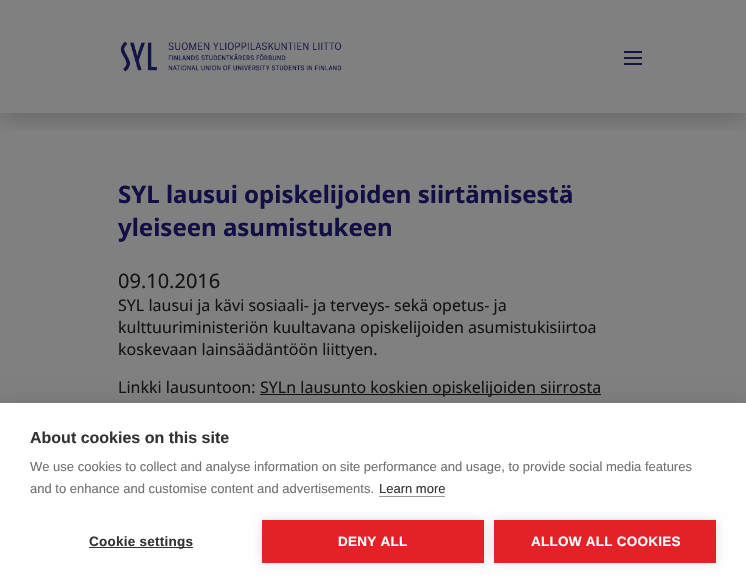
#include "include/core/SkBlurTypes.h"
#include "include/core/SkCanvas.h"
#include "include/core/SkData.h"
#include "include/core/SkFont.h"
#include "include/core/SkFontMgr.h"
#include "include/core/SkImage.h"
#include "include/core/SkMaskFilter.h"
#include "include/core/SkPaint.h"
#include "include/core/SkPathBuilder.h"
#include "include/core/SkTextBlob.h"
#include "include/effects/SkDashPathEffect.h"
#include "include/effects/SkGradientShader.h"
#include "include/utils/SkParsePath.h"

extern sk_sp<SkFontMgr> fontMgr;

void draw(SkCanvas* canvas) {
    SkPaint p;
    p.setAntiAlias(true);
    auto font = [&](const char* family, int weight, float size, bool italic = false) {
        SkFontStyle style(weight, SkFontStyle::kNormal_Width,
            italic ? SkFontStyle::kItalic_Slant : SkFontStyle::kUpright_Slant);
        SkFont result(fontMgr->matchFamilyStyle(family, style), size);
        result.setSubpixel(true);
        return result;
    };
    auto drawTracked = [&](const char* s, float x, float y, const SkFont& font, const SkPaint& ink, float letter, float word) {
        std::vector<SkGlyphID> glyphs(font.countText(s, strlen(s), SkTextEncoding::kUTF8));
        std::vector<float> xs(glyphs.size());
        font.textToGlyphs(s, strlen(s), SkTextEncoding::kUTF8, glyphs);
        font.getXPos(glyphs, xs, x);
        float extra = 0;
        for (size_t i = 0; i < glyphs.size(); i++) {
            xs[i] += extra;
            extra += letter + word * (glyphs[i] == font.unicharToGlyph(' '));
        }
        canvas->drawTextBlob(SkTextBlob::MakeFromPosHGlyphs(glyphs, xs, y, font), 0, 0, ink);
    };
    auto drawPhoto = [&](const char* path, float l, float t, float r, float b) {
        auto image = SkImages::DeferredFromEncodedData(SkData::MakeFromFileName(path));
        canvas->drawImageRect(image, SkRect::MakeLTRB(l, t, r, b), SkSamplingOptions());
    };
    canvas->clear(0xFF808080);
    canvas->save();
    canvas->clipRect(SkRect::MakeLTRB(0, 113, 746, 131));
    p.setColor(0x33000000);
    p.setMaskFilter(SkMaskFilter::MakeBlur(kNormal_SkBlurStyle, 10));
    canvas->drawRect(SkRect::MakeLTRB(0, 5, 746, 118), p);
    p.setMaskFilter(nullptr);
    canvas->restore();
    drawPhoto("media/1.png", 120, 41, 342, 72);
    {
        const struct { float l, t, r, b; SkColor color; } items[] = {
            {624, 57, 642, 59, 0xFF121446},
            {624, 51, 642, 53, 0xFF121446},
            {624, 63, 642, 65, 0xFF121446},
        };
        for (auto [l, t, r, b, color] : items) {
            p.setColor(color);
            canvas->drawRect(SkRect::MakeLTRB(l, t, r, b), p);
        }
    }
    auto font1 = font("Noto Sans", 700, 24);
    p.setColor(0xFF110F43);
    canvas->drawString("SYL lausui opiskelijoiden siirtämisestä", 118, 203, font1, p);
    canvas->drawString("yleiseen asumistukeen", 118, 236, font1, p);
    auto font2 = font("Noto Sans", 400, 20);
    p.setColor(0xFF131313);
    canvas->drawString("09.10.2016", 118, 288, font2, p);
    auto font3 = font("Noto Sans", 400, 16);
    {
        const struct { const char* s; float x, y; } items[] = {
            {"SYL lausui ja kävi sosiaali- ja terveys- sekä opetus- ja", 118, 311},
            {"kulttuuriministeriön kuultavana opiskelijoiden asumistukisiirtoa", 118, 333},
            {"koskevaan lainsäädäntöön liittyen.", 118, 355},
            {"Linkki lausuntoon:", 118, 393},
        };
        for (auto [s, x, y] : items) {
            canvas->drawString(s, x, y, font3, p);
        }
    }
    canvas->drawRect(SkRect::MakeLTRB(260, 394, 601, 395), p);
    canvas->drawString("SYLn lausunto koskien opiskelijoiden siirrosta", 260, 393, font3, p);
    p.setColor(0x1A000000);
    p.setMaskFilter(SkMaskFilter::MakeBlur(kNormal_SkBlurStyle, 10));
    canvas->drawRect(SkRect::MakeLTRB(0, 403, 746, 588), p);
    p.setMaskFilter(nullptr);
    p.setColor(0xFFFFFFFF);
    canvas->drawRect(SkRect::MakeLTRB(0, 403, 746, 588), p);
    auto font4 = font("Liberation Sans", 700, 16);
    p.setColor(0xFF333333);
    canvas->drawString("About cookies on this site", 30, 443, font4, p);
    auto font5 = font("Liberation Sans", 400, 13);
    p.setColor(0xFF707070);
    canvas->drawString("We use cookies to collect and analyse information on site performance and usage, to provide social media features", 30, 471, font5, p);
    canvas->drawString("and to enhance and customise content and advertisements.", 30, 493, font5, p);
    p.setColor(0xFF333333);
    canvas->drawString("Learn more", 379, 493, font5, p);
    p.setColor(0xFF999999);
    canvas->drawRect(SkRect::MakeLTRB(379, 496, 445, 497), p);
    p.setColor(0xFF333333);
    canvas->drawRect(SkRect::MakeLTRB(89, 547, 193, 548), p);
    auto font6 = font("Liberation Sans", 700, 13.5f);
    drawTracked("Cookie settings", 89, 546, font6, p, 0.25f, 0);
    p.setColor(0x1F000000);
    p.setMaskFilter(SkMaskFilter::MakeBlur(kNormal_SkBlurStyle, 5));
    canvas->drawRect(SkRect::MakeLTRB(262, 520, 484, 563), p);
    p.setMaskFilter(nullptr);
    p.setColor(0xFFE42127);
    canvas->drawRect(SkRect::MakeLTRB(262, 520, 484, 563), p);
    p.setColor(0xFFFFFFFF);
    drawTracked("DENY ALL", 338, 546, font6, p, 0.25f, 0);
    p.setColor(0x1F000000);
    p.setMaskFilter(SkMaskFilter::MakeBlur(kNormal_SkBlurStyle, 5));
    canvas->drawRect(SkRect::MakeLTRB(494, 520, 716, 563), p);
    p.setMaskFilter(nullptr);
    p.setColor(0xFFE42127);
    canvas->drawRect(SkRect::MakeLTRB(494, 520, 716, 563), p);
    p.setColor(0xFFFFFFFF);
    drawTracked("ALLOW ALL COOKIES", 531, 546, font6, p, 0.25f, 0);
}
